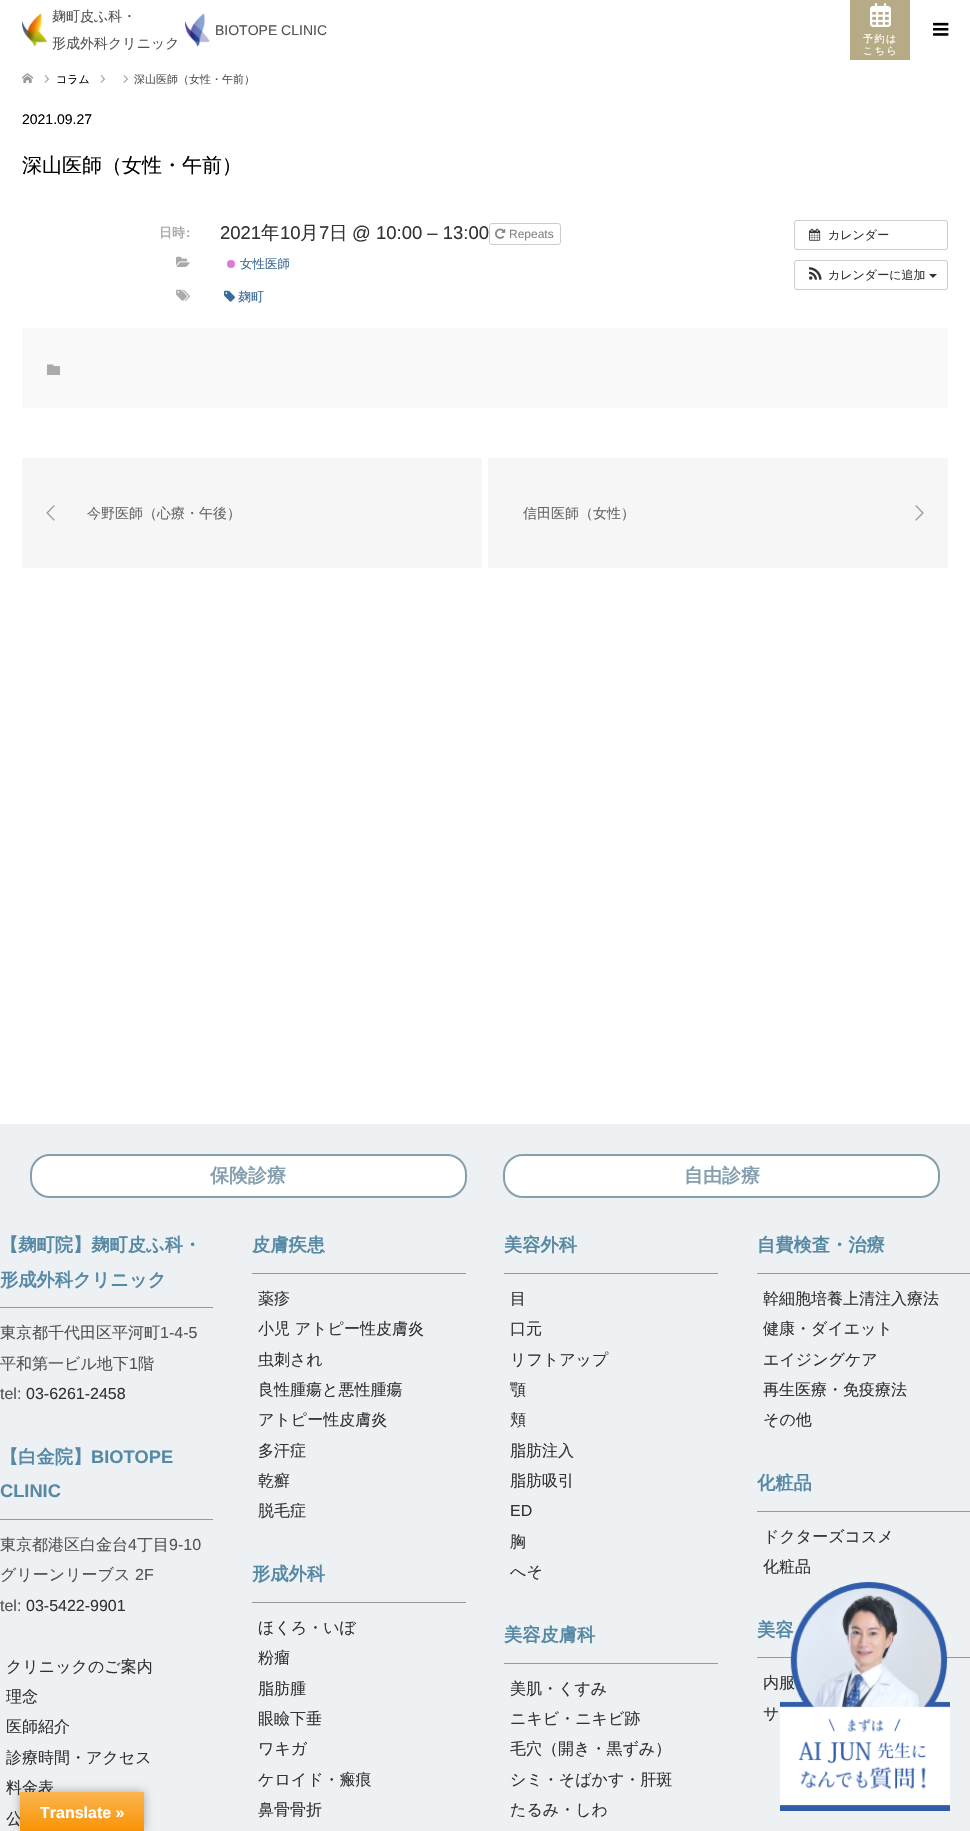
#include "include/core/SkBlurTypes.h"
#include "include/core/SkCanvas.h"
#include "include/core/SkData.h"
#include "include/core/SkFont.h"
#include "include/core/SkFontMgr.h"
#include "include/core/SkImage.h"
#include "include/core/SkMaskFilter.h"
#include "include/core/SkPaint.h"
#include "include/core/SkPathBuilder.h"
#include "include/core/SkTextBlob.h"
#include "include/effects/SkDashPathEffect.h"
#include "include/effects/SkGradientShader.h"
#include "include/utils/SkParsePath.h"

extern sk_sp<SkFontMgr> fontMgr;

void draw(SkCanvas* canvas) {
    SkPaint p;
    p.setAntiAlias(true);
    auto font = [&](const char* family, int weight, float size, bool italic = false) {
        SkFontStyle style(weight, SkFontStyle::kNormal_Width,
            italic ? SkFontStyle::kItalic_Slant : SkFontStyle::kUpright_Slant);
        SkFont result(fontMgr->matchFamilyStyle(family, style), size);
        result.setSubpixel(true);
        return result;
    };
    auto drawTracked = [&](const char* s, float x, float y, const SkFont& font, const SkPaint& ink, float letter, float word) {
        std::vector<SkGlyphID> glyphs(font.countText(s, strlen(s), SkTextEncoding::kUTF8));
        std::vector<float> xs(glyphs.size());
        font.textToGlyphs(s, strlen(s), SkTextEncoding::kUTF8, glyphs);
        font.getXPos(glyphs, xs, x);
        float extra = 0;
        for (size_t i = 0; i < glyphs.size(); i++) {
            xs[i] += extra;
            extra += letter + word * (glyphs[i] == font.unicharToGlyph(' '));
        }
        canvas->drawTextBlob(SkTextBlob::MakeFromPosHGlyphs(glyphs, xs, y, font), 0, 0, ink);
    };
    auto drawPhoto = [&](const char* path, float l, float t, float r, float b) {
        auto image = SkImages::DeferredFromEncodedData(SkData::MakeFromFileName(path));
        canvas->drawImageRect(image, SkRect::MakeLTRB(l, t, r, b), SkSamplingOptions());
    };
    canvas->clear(0xFFFFFFFF);
    drawPhoto("media/1.png", 22, 13, 47, 47);
    auto font1 = font("WenQuanYi Zen Hei", 500, 14);
    p.setColor(0xFF545454);
    canvas->drawString("麹町皮ふ科・", 52, 21, font1, p);
    canvas->drawString("形成外科クリニック", 52, 48, font1, p);
    drawPhoto("media/2.png", 185, 13, 210, 47);
    auto font2 = font("Liberation Sans", 400, 14);
    canvas->drawString("BIOTOPE CLINIC", 215, 35, font2, p);
    drawPhoto("media/3.png", 933, 22, 949, 36);
    p.setColor(0xFFB7AB86);
    canvas->drawRect(SkRect::MakeLTRB(850, 0, 910, 60), p);
    drawPhoto("media/4.png", 870, 3, 891, 27);
    auto font3 = font("WenQuanYi Zen Hei", 500, 10);
    p.setColor(0xFFFFFFFF);
    drawTracked("予約は", 863, 42, font3, p, 1.5f, 0);
    drawTracked("こちら", 863, 54, font3, p, 1.5f, 0);
    drawPhoto("media/5.png", 22, 73, 33, 83);
    drawPhoto("media/6.png", 44, 75, 49, 83);
    auto font4 = font("WenQuanYi Zen Hei", 500, 11);
    p.setColor(0xFF000000);
    canvas->drawString("コラム", 56, 83, font4, p);
    drawPhoto("media/6.png", 100, 75, 105, 83);
    drawPhoto("media/6.png", 123, 75, 128, 83);
    p.setColor(0xFF545454);
    canvas->drawString("深山医師（女性・午前）", 134, 83, font4, p);
    p.setColor(0xFF000000);
    canvas->drawString("2021.09.27", 22, 124, font2, p);
    auto font5 = font("WenQuanYi Zen Hei", 500, 20);
    canvas->drawString("深山医師（女性・午前）", 22, 172, font5, p);
    auto font6 = font("WenQuanYi Zen Hei", 700, 13);
    p.setColor(0xFFAAAAAA);
    canvas->drawString("日時", 159, 237, font6, p);
    auto font7 = font("Liberation Sans", 700, 13);
    canvas->drawString(":", 186, 237, font7, p);
    auto font8 = font("Liberation Sans", 400, 18.5f);
    p.setColor(0xFF333333);
    canvas->drawString("2021", 220, 239, font8, p);
    auto font9 = font("WenQuanYi Zen Hei", 500, 18.5f);
    canvas->drawString("年", 261, 239, font9, p);
    canvas->drawString("10", 280, 239, font8, p);
    canvas->drawString("月", 300, 239, font9, p);
    canvas->drawString("7", 319, 239, font8, p);
    canvas->drawString("日", 329, 239, font9, p);
    canvas->drawString("@ 10:00 – 13:00", 352, 239, font8, p);
    p.setStyle(SkPaint::kStroke_Style);
    p.setStrokeWidth(1);
    p.setColor(0xFFCCCCCC);
    canvas->drawRoundRect(SkRect::MakeLTRB(489.5f, 223.5f, 560.5f, 244.5f), 2.5f, 2.5f, p);
    drawPhoto("media/7.png", 495, 228, 506, 239);
    auto font10 = font("Liberation Sans", 400, 12);
    p.setStyle(SkPaint::kFill_Style);
    p.setColor(0xFF858585);
    canvas->drawString("Repeats", 509, 238, font10, p);
    drawPhoto("media/8.png", 176, 256, 190, 267);
    p.setColor(0xFFDE78DE);
    canvas->drawCircle(231, 264, 4, p);
    auto font11 = font("WenQuanYi Zen Hei", 500, 12.5f);
    p.setColor(0xFF3D6B99);
    canvas->drawString("女性医師", 240, 268, font11, p);
    drawPhoto("media/9.png", 176, 289, 190, 301);
    drawPhoto("media/10.png", 224, 290, 235, 302);
    auto font12 = font("WenQuanYi Zen Hei", 500, 13);
    canvas->drawString("麹町", 238, 301, font12, p);
    p.setStyle(SkPaint::kStroke_Style);
    p.setColor(0xFFCCCCCC);
    canvas->drawRoundRect(SkRect::MakeLTRB(794.5f, 220.5f, 947.5f, 249.5f), 2.5f, 2.5f, p);
    drawPhoto("media/11.png", 809, 228, 821, 241);
    auto font13 = font("WenQuanYi Zen Hei", 500, 12);
    p.setStyle(SkPaint::kFill_Style);
    p.setColor(0xFF333333);
    canvas->drawString("カレンダー", 828, 239, font13, p);
    p.setStyle(SkPaint::kStroke_Style);
    p.setColor(0xFFCCCCCC);
    canvas->drawRoundRect(SkRect::MakeLTRB(794.5f, 260.5f, 947.5f, 289.5f), 2.5f, 2.5f, p);
    drawPhoto("media/12.png", 809, 267, 822, 280);
    p.setStyle(SkPaint::kFill_Style);
    p.setColor(0xFF333333);
    canvas->drawString("カレンダーに追加", 828, 279, font13, p);
    canvas->drawPath(SkPathBuilder().moveTo(929, 274).lineTo(937, 274).lineTo(933, 278).close().detach(), p);
    p.setColor(0xFFF9F9F9);
    canvas->drawRect(SkRect::MakeLTRB(22, 328, 948, 408), p);
    drawPhoto("media/13.png", 47, 364, 60, 375);
    p.setColor(0xFFF6F6F6);
    canvas->drawRect(SkRect::MakeLTRB(22, 458, 482, 568), p);
    drawPhoto("media/14.png", 46, 505, 55, 521);
    p.setColor(0xFF666666);
    canvas->drawString("今野医師（心療・午後）", 87, 518, font1, p);
    p.setColor(0xFFF6F6F6);
    canvas->drawRect(SkRect::MakeLTRB(488, 458, 948, 568), p);
    p.setColor(0xFF666666);
    canvas->drawString("信田医師（女性）", 523, 518, font1, p);
    drawPhoto("media/15.png", 915, 505, 924, 521);
    p.setColor(0xFFEDF1F3);
    canvas->drawRect(SkRect::MakeLTRB(0, 1124, 970, 1831), p);
    p.setColor(0xFFFFFFFF);
    canvas->drawRoundRect(SkRect::MakeLTRB(31, 1155, 466, 1197), 19, 19, p);
    p.setStyle(SkPaint::kStroke_Style);
    p.setStrokeWidth(2);
    p.setColor(0xFF859FAE);
    canvas->drawRoundRect(SkRect::MakeLTRB(31, 1155, 466, 1197), 19, 19, p);
    auto font14 = font("WenQuanYi Zen Hei", 700, 19);
    p.setStyle(SkPaint::kFill_Style);
    canvas->drawString("保険診療", 210, 1182, font14, p);
    p.setColor(0xFFFFFFFF);
    canvas->drawRoundRect(SkRect::MakeLTRB(504, 1155, 939, 1197), 19, 19, p);
    p.setStyle(SkPaint::kStroke_Style);
    p.setColor(0xFF859FAE);
    canvas->drawRoundRect(SkRect::MakeLTRB(504, 1155, 939, 1197), 19, 19, p);
    p.setStyle(SkPaint::kFill_Style);
    canvas->drawString("自由診療", 684, 1182, font14, p);
    auto font15 = font("WenQuanYi Zen Hei", 700, 18.25f);
    p.setColor(0xFF5689A5);
    canvas->drawString("【麹町院】麹町皮ふ科・", 0, 1251, font15, p);
    canvas->drawString("形成外科クリニック", 0, 1286, font15, p);
    p.setColor(0xFF999999);
    canvas->drawRect(SkRect::MakeLTRB(0, 1307, 213, 1308), p);
    auto font16 = font("WenQuanYi Zen Hei", 500, 16);
    p.setColor(0xFF545454);
    canvas->drawString("東京都千代田区平河町", 0, 1338, font16, p);
    auto font17 = font("Liberation Sans", 400, 16);
    canvas->drawString("1-4-5", 160, 1338, font17, p);
    canvas->drawString("平和第一ビル地下", 0, 1369, font16, p);
    canvas->drawString("1", 129, 1369, font17, p);
    canvas->drawString("階", 138, 1369, font16, p);
    canvas->drawString("tel:", 0, 1399, font17, p);
    p.setColor(0xFF333333);
    canvas->drawString("03-6261-2458", 26, 1399, font17, p);
    p.setColor(0xFF5689A5);
    canvas->drawString("【白金院】", 0, 1463, font15, p);
    auto font18 = font("Liberation Sans", 700, 18.25f);
    canvas->drawString("BIOTOPE", 91, 1463, font18, p);
    canvas->drawString("CLINIC", 0, 1497, font18, p);
    p.setColor(0xFF999999);
    canvas->drawRect(SkRect::MakeLTRB(0, 1519, 213, 1520), p);
    p.setColor(0xFF545454);
    canvas->drawString("東京都港区白金台", 0, 1550, font16, p);
    canvas->drawString("4", 128, 1550, font17, p);
    canvas->drawString("丁目", 137, 1550, font16, p);
    canvas->drawString("9-10", 169, 1550, font17, p);
    canvas->drawString("グリーンリーブス", 0, 1580, font16, p);
    canvas->drawString("2F", 135, 1580, font17, p);
    canvas->drawString("tel:", 0, 1611, font17, p);
    p.setColor(0xFF333333);
    canvas->drawString("03-5422-9901", 26, 1611, font17, p);
    {
        const struct { const char* s; float x, y; } items[] = {
            {"クリニックのご案内", 6, 1672},
            {"理念", 6, 1702},
            {"医師紹介", 6, 1732},
            {"診療時間・アクセス", 6, 1763},
            {"料金表", 6, 1793},
            {"公", 6, 1824},
        };
        for (auto [s, x, y] : items) {
            canvas->drawString(s, x, y, font16, p);
        }
    }
    p.setColor(0xFF5689A5);
    canvas->drawString("皮膚疾患", 252, 1251, font15, p);
    p.setColor(0xFF999999);
    canvas->drawRect(SkRect::MakeLTRB(252, 1273, 466, 1274), p);
    p.setColor(0xFF333333);
    {
        const struct { const char* s; float x, y; } items[] = {
            {"薬疹", 258, 1304},
            {"小児 アトピー性皮膚炎", 258, 1334},
            {"虫刺され", 258, 1365},
            {"良性腫瘍と悪性腫瘍", 258, 1395},
            {"アトピー性皮膚炎", 258, 1425},
            {"多汗症", 258, 1456},
            {"乾癬", 258, 1486},
            {"脱毛症", 258, 1516},
        };
        for (auto [s, x, y] : items) {
            canvas->drawString(s, x, y, font16, p);
        }
    }
    p.setColor(0xFF5689A5);
    canvas->drawString("形成外科", 252, 1580, font15, p);
    p.setColor(0xFF999999);
    canvas->drawRect(SkRect::MakeLTRB(252, 1602, 466, 1603), p);
    p.setColor(0xFF333333);
    {
        const struct { const char* s; float x, y; } items[] = {
            {"ほくろ・いぼ", 258, 1633},
            {"粉瘤", 258, 1663},
            {"脂肪腫", 258, 1694},
            {"眼瞼下垂", 258, 1724},
            {"ワキガ", 258, 1754},
            {"ケロイド・瘢痕", 258, 1785},
            {"鼻骨骨折", 258, 1815},
        };
        for (auto [s, x, y] : items) {
            canvas->drawString(s, x, y, font16, p);
        }
    }
    p.setColor(0xFF5689A5);
    canvas->drawString("美容外科", 504, 1251, font15, p);
    p.setColor(0xFF999999);
    canvas->drawRect(SkRect::MakeLTRB(504, 1273, 718, 1274), p);
    p.setColor(0xFF333333);
    {
        const struct { const char* s; float x, y; } items[] = {
            {"目", 510, 1304},
            {"口元", 510, 1334},
            {"リフトアップ", 510, 1365},
            {"顎", 510, 1395},
            {"頬", 510, 1425},
            {"脂肪注入", 510, 1456},
            {"脂肪吸引", 510, 1486},
        };
        for (auto [s, x, y] : items) {
            canvas->drawString(s, x, y, font16, p);
        }
    }
    canvas->drawString("ED", 510, 1516, font17, p);
    canvas->drawString("胸", 510, 1547, font16, p);
    canvas->drawString("へそ", 510, 1577, font16, p);
    p.setColor(0xFF5689A5);
    canvas->drawString("美容皮膚科", 504, 1641, font15, p);
    p.setColor(0xFF999999);
    canvas->drawRect(SkRect::MakeLTRB(504, 1663, 718, 1664), p);
    p.setColor(0xFF333333);
    {
        const struct { const char* s; float x, y; } items[] = {
            {"美肌・くすみ", 510, 1694},
            {"ニキビ・ニキビ跡", 510, 1724},
            {"毛穴（開き・黒ずみ）", 510, 1754},
            {"シミ・そばかす・肝斑", 510, 1785},
            {"たるみ・しわ", 510, 1815},
        };
        for (auto [s, x, y] : items) {
            canvas->drawString(s, x, y, font16, p);
        }
    }
    p.setColor(0xFF5689A5);
    canvas->drawString("自費検査・治療", 757, 1251, font15, p);
    p.setColor(0xFF999999);
    canvas->drawRect(SkRect::MakeLTRB(757, 1273, 970, 1274), p);
    p.setColor(0xFF333333);
    {
        const struct { const char* s; float x, y; } items[] = {
            {"幹細胞培養上清注入療法", 763, 1304},
            {"健康・ダイエット", 763, 1334},
            {"エイジングケア", 763, 1365},
            {"再生医療・免疫療法", 763, 1395},
            {"その他", 763, 1425},
        };
        for (auto [s, x, y] : items) {
            canvas->drawString(s, x, y, font16, p);
        }
    }
    p.setColor(0xFF5689A5);
    canvas->drawString("化粧品", 757, 1489, font15, p);
    p.setColor(0xFF999999);
    canvas->drawRect(SkRect::MakeLTRB(757, 1511, 970, 1512), p);
    p.setColor(0xFF333333);
    canvas->drawString("ドクターズコスメ", 763, 1542, font16, p);
    canvas->drawString("化粧品", 763, 1572, font16, p);
    p.setColor(0xFF5689A5);
    canvas->drawString("美容", 757, 1636, font15, p);
    p.setColor(0xFF999999);
    canvas->drawRect(SkRect::MakeLTRB(757, 1657, 970, 1658), p);
    p.setColor(0xFF333333);
    canvas->drawString("内服", 763, 1688, font16, p);
    canvas->drawString("サ", 763, 1719, font16, p);
    drawPhoto("media/16.png", 780, 1582, 950, 1811);
    p.setColor(0x4D000000);
    p.setMaskFilter(SkMaskFilter::MakeBlur(kNormal_SkBlurStyle, 4.5f));
    canvas->drawRect(SkRect::MakeLTRB(20, 1792, 144, 1831), p);
    p.setMaskFilter(nullptr);
    {
        const SkColor colors[] = {0xFFFBB450, 0xFFF89406};
        const float stops[] = {0, 1};
        const SkPoint ends[] = {{82, 1792}, {82, 1831}};
        p.setShader(SkGradientShader::MakeLinear(ends, colors, stops, 2, SkTileMode::kClamp));
        p.setAlpha(255);
    }
    canvas->drawRect(SkRect::MakeLTRB(20, 1792, 144, 1831), p);
    auto font19 = font("Liberation Sans", 700, 16);
    p.setShader(nullptr);
    p.setColor(0xFFFFFFFF);
    canvas->drawString("Translate »", 40, 1818, font19, p);
}
